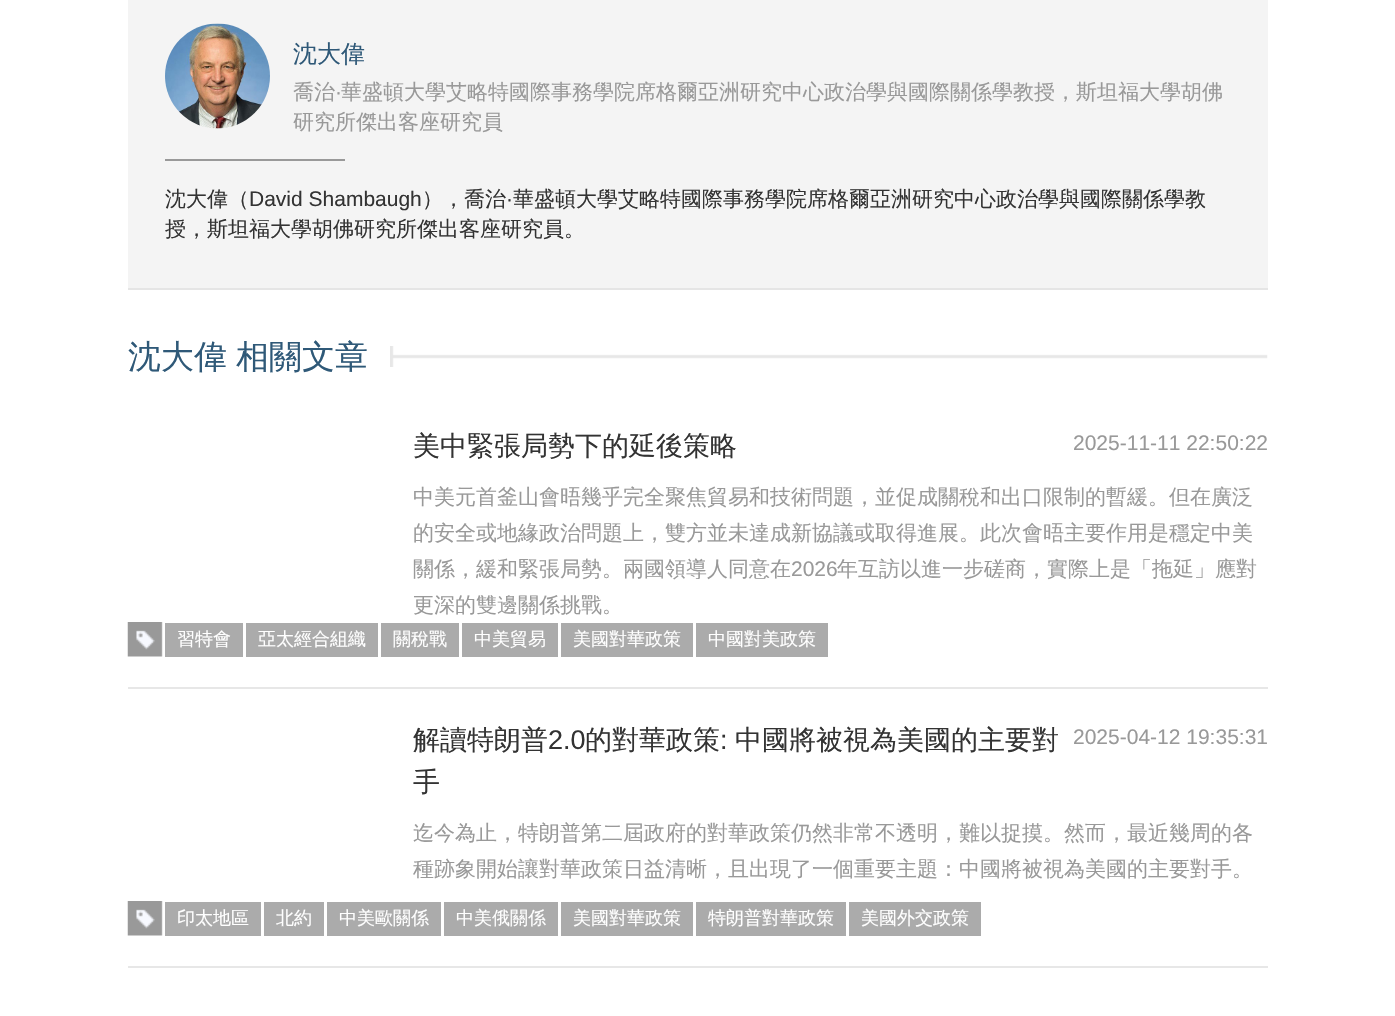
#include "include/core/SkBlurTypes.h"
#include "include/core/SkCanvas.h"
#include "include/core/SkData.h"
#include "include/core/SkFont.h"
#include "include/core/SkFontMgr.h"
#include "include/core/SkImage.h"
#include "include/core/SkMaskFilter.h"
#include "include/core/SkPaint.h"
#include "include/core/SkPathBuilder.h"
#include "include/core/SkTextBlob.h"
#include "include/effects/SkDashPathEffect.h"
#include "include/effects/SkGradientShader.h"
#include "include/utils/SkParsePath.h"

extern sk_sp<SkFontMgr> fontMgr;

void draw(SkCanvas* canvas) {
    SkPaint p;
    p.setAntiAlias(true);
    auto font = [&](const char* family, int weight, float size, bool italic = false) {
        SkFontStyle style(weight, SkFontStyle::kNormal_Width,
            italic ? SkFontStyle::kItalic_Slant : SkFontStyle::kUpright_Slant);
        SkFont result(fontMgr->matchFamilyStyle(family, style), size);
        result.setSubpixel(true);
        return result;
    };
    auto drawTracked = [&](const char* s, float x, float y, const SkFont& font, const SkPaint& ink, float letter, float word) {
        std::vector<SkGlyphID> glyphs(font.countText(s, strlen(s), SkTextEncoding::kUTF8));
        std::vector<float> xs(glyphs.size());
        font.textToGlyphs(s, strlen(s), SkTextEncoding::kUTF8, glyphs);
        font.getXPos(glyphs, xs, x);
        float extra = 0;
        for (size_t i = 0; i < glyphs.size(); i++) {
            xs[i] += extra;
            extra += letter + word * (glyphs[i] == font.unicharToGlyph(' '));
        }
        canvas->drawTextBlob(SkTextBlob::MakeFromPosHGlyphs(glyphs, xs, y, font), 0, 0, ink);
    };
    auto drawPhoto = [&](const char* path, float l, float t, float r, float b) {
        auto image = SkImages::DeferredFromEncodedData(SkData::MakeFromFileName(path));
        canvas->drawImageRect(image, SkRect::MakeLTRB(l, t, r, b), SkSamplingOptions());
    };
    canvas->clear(0xFFFFFFFF);
    p.setColor(0xFFF4F4F4);
    canvas->drawRect(SkRect::MakeLTRB(128, 0, 1268, 288), p);
    p.setColor(0xFFE5E5E5);
    canvas->drawRect(SkRect::MakeLTRB(128, 288, 1268, 290), p);
    drawPhoto("media/1.png", 165, 23, 270, 129);
    auto font1 = font("WenQuanYi Zen Hei", 500, 24);
    p.setColor(0xFF2F5978);
    canvas->drawString("沈大偉", 293, 62, font1, p);
    auto font2 = font("WenQuanYi Zen Hei", 500, 21);
    p.setColor(0xFF999999);
    canvas->drawString("喬治", 293, 99, font2, p);
    auto font3 = font("Liberation Sans", 400, 21);
    canvas->drawString("·", 335, 99, font3, p);
    canvas->drawString("華盛頓大學艾略特國際事務學院席格爾亞洲研究中心政治學與國際關係學教授，斯坦福大學胡佛", 341, 99, font2, p);
    canvas->drawString("研究所傑出客座研究員", 293, 129, font2, p);
    canvas->drawRect(SkRect::MakeLTRB(165, 159, 345, 161), p);
    p.setColor(0xFF333333);
    canvas->drawString("沈大偉（", 165, 206, font2, p);
    canvas->drawString("David Shambaugh", 249, 206, font3, p);
    canvas->drawString("），喬治", 422, 206, font2, p);
    canvas->drawString("·", 506, 206, font3, p);
    canvas->drawString("華盛頓大學艾略特國際事務學院席格爾亞洲研究中心政治學與國際關係學教", 513, 206, font2, p);
    canvas->drawString("授，斯坦福大學胡佛研究所傑出客座研究員。", 165, 236, font2, p);
    auto font4 = font("WenQuanYi Zen Hei", 500, 33);
    p.setColor(0xFF2F5978);
    drawTracked("沈大偉 相關文章", 128, 368, font4, p, 0, -1);
    drawPhoto("media/2.png", 390, 346, 1268, 367);
    p.setColor(0xFFE7E7E7);
    canvas->drawRect(SkRect::MakeLTRB(128, 687, 1268, 689), p);
    auto font5 = font("WenQuanYi Zen Hei", 500, 27);
    p.setColor(0xFF333333);
    canvas->drawString("美中緊張局勢下的延後策略", 413, 455, font5, p);
    p.setColor(0xFF999999);
    canvas->drawString("2025-11-11 22:50:22", 1073, 450, font3, p);
    {
        const struct { const char* s; float x, y; } items[] = {
            {"中美元首釜山會晤幾乎完全聚焦貿易和技術問題，並促成關稅和出口限制的暫緩。但在廣泛", 413, 504},
            {"的安全或地緣政治問題上，雙方並未達成新協議或取得進展。此次會晤主要作用是穩定中美", 413, 540},
            {"關係，緩和緊張局勢。兩國領導人同意在", 413, 576},
        };
        for (auto [s, x, y] : items) {
            canvas->drawString(s, x, y, font2, p);
        }
    }
    canvas->drawString("2026", 791, 576, font3, p);
    canvas->drawString("年互訪以進一步磋商，實際上是「拖延」應對", 837, 576, font2, p);
    canvas->drawString("更深的雙邊關係挑戰。", 413, 612, font2, p);
    drawPhoto("media/3.png", 127, 622, 163, 657);
    p.setColor(0xFFABABAB);
    canvas->drawRect(SkRect::MakeLTRB(165, 623, 243, 657), p);
    auto font6 = font("WenQuanYi Zen Hei", 500, 18);
    p.setColor(0xFFFFFFFF);
    canvas->drawString("習特會", 177, 645, font6, p);
    p.setColor(0xFFABABAB);
    canvas->drawRect(SkRect::MakeLTRB(246, 623, 378, 657), p);
    p.setColor(0xFFFFFFFF);
    canvas->drawString("亞太經合組織", 258, 645, font6, p);
    p.setColor(0xFFABABAB);
    canvas->drawRect(SkRect::MakeLTRB(381, 623, 459, 657), p);
    p.setColor(0xFFFFFFFF);
    canvas->drawString("關稅戰", 393, 645, font6, p);
    p.setColor(0xFFABABAB);
    canvas->drawRect(SkRect::MakeLTRB(462, 623, 558, 657), p);
    p.setColor(0xFFFFFFFF);
    canvas->drawString("中美貿易", 474, 645, font6, p);
    p.setColor(0xFFABABAB);
    canvas->drawRect(SkRect::MakeLTRB(561, 623, 693, 657), p);
    p.setColor(0xFFFFFFFF);
    canvas->drawString("美國對華政策", 573, 645, font6, p);
    p.setColor(0xFFABABAB);
    canvas->drawRect(SkRect::MakeLTRB(696, 623, 828, 657), p);
    p.setColor(0xFFFFFFFF);
    canvas->drawString("中國對美政策", 708, 645, font6, p);
    p.setColor(0xFFE7E7E7);
    canvas->drawRect(SkRect::MakeLTRB(128, 966, 1268, 968), p);
    p.setColor(0xFF333333);
    canvas->drawString("解讀特朗普", 413, 749, font5, p);
    auto font7 = font("Liberation Sans", 400, 27);
    canvas->drawString("2.0", 548, 749, font7, p);
    canvas->drawString("的對華政策", 585, 749, font5, p);
    canvas->drawString(":", 720, 749, font7, p);
    canvas->drawString("中國將被視為美國的主要對", 735, 749, font5, p);
    p.setColor(0xFF999999);
    canvas->drawString("2025-04-12 19:35:31", 1073, 744, font3, p);
    p.setColor(0xFF333333);
    canvas->drawString("手", 413, 791, font5, p);
    p.setColor(0xFF999999);
    canvas->drawString("迄今為止，特朗普第二屆政府的對華政策仍然非常不透明，難以捉摸。然而，最近幾周的各", 413, 840, font2, p);
    canvas->drawString("種跡象開始讓對華政策日益清晰，且出現了一個重要主題：中國將被視為美國的主要對手。", 413, 876, font2, p);
    drawPhoto("media/3.png", 127, 901, 163, 936);
    p.setColor(0xFFABABAB);
    canvas->drawRect(SkRect::MakeLTRB(165, 902, 261, 936), p);
    p.setColor(0xFFFFFFFF);
    canvas->drawString("印太地區", 177, 924, font6, p);
    p.setColor(0xFFABABAB);
    canvas->drawRect(SkRect::MakeLTRB(264, 902, 324, 936), p);
    p.setColor(0xFFFFFFFF);
    canvas->drawString("北約", 276, 924, font6, p);
    p.setColor(0xFFABABAB);
    canvas->drawRect(SkRect::MakeLTRB(327, 902, 441, 936), p);
    p.setColor(0xFFFFFFFF);
    canvas->drawString("中美歐關係", 339, 924, font6, p);
    p.setColor(0xFFABABAB);
    canvas->drawRect(SkRect::MakeLTRB(444, 902, 558, 936), p);
    p.setColor(0xFFFFFFFF);
    canvas->drawString("中美俄關係", 456, 924, font6, p);
    p.setColor(0xFFABABAB);
    canvas->drawRect(SkRect::MakeLTRB(561, 902, 693, 936), p);
    p.setColor(0xFFFFFFFF);
    canvas->drawString("美國對華政策", 573, 924, font6, p);
    p.setColor(0xFFABABAB);
    canvas->drawRect(SkRect::MakeLTRB(696, 902, 846, 936), p);
    p.setColor(0xFFFFFFFF);
    canvas->drawString("特朗普對華政策", 708, 924, font6, p);
    p.setColor(0xFFABABAB);
    canvas->drawRect(SkRect::MakeLTRB(849, 902, 981, 936), p);
    p.setColor(0xFFFFFFFF);
    canvas->drawString("美國外交政策", 861, 924, font6, p);
}
